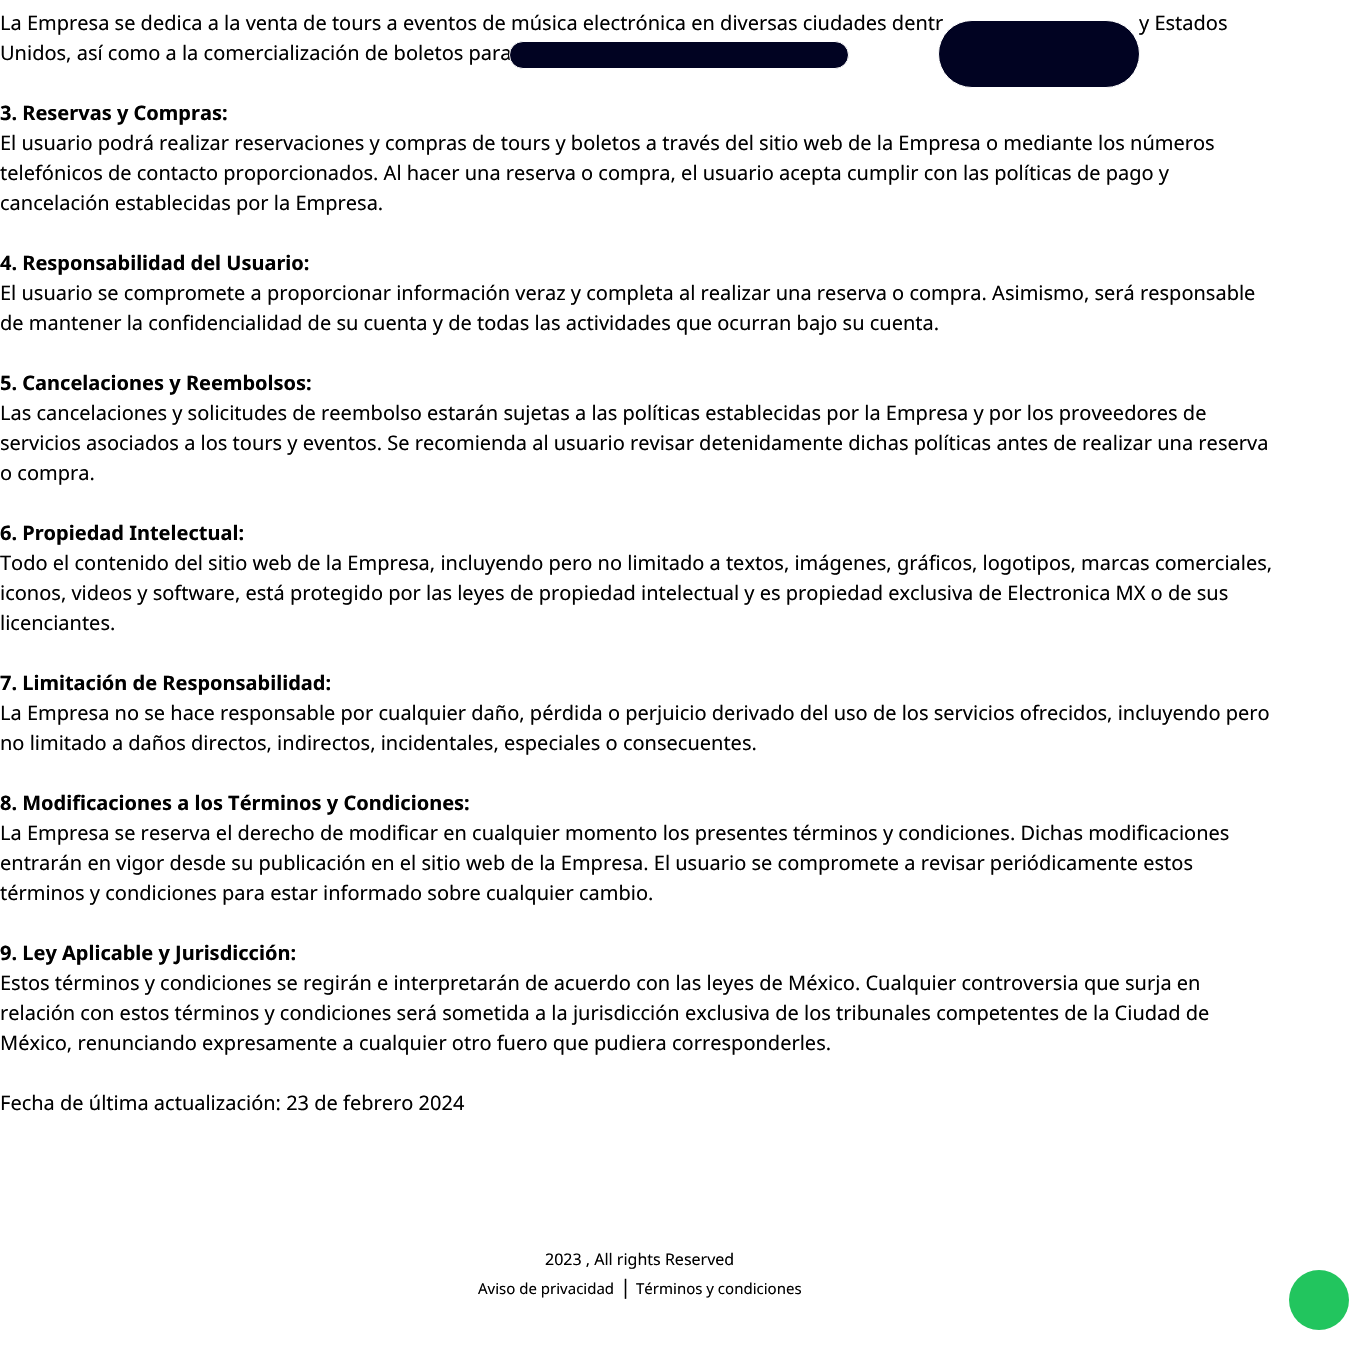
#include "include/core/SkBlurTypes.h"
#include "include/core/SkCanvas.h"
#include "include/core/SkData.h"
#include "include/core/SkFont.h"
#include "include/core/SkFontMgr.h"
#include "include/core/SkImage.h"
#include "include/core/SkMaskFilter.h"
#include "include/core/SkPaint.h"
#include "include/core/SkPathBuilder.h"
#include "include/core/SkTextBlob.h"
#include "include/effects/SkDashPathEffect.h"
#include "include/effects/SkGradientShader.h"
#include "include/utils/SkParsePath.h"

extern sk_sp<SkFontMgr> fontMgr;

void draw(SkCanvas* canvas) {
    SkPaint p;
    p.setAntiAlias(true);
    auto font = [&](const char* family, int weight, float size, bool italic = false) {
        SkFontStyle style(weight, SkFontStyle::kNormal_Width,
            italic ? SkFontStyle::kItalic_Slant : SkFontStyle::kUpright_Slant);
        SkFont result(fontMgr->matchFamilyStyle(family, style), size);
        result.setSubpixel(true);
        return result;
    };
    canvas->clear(0xFFFFFFFF);
    auto font1 = font("Noto Sans", 400, 20);
    p.setColor(0xFF000000);
    {
        const struct { const char* s; float x, y; } items[] = {
            {"La Empresa se dedica a la venta de tours a eventos de música electrónica en diversas ciudades dentr", 0, 30},
            {"y Estados", 1139, 30},
            {"Unidos, así como a la comercialización de boletos para", 0, 60},
        };
        for (auto [s, x, y] : items) {
            canvas->drawString(s, x, y, font1, p);
        }
    }
    auto font2 = font("Noto Sans", 700, 20);
    canvas->drawString("3. Reservas y Compras:", 0, 120, font2, p);
    {
        const struct { const char* s; float x, y; } items[] = {
            {"El usuario podrá realizar reservaciones y compras de tours y boletos a través del sitio web de la Empresa o mediante los números", 0, 150},
            {"telefónicos de contacto proporcionados. Al hacer una reserva o compra, el usuario acepta cumplir con las políticas de pago y", 0, 180},
            {"cancelación establecidas por la Empresa.", 0, 210},
        };
        for (auto [s, x, y] : items) {
            canvas->drawString(s, x, y, font1, p);
        }
    }
    canvas->drawString("4. Responsabilidad del Usuario:", 0, 270, font2, p);
    canvas->drawString("El usuario se compromete a proporcionar información veraz y completa al realizar una reserva o compra. Asimismo, será responsable", 0, 300, font1, p);
    canvas->drawString("de mantener la confidencialidad de su cuenta y de todas las actividades que ocurran bajo su cuenta.", 0, 330, font1, p);
    canvas->drawString("5. Cancelaciones y Reembolsos:", 0, 390, font2, p);
    {
        const struct { const char* s; float x, y; } items[] = {
            {"Las cancelaciones y solicitudes de reembolso estarán sujetas a las políticas establecidas por la Empresa y por los proveedores de", 0, 420},
            {"servicios asociados a los tours y eventos. Se recomienda al usuario revisar detenidamente dichas políticas antes de realizar una reserva", 0, 450},
            {"o compra.", 0, 480},
        };
        for (auto [s, x, y] : items) {
            canvas->drawString(s, x, y, font1, p);
        }
    }
    canvas->drawString("6. Propiedad Intelectual:", 0, 540, font2, p);
    {
        const struct { const char* s; float x, y; } items[] = {
            {"Todo el contenido del sitio web de la Empresa, incluyendo pero no limitado a textos, imágenes, gráficos, logotipos, marcas comerciales,", 0, 570},
            {"iconos, videos y software, está protegido por las leyes de propiedad intelectual y es propiedad exclusiva de Electronica MX o de sus", 0, 600},
            {"licenciantes.", 0, 630},
        };
        for (auto [s, x, y] : items) {
            canvas->drawString(s, x, y, font1, p);
        }
    }
    canvas->drawString("7. Limitación de Responsabilidad:", 0, 690, font2, p);
    canvas->drawString("La Empresa no se hace responsable por cualquier daño, pérdida o perjuicio derivado del uso de los servicios ofrecidos, incluyendo pero", 0, 720, font1, p);
    canvas->drawString("no limitado a daños directos, indirectos, incidentales, especiales o consecuentes.", 0, 750, font1, p);
    canvas->drawString("8. Modificaciones a los Términos y Condiciones:", 0, 810, font2, p);
    {
        const struct { const char* s; float x, y; } items[] = {
            {"La Empresa se reserva el derecho de modificar en cualquier momento los presentes términos y condiciones. Dichas modificaciones", 0, 840},
            {"entrarán en vigor desde su publicación en el sitio web de la Empresa. El usuario se compromete a revisar periódicamente estos", 0, 870},
            {"términos y condiciones para estar informado sobre cualquier cambio.", 0, 900},
        };
        for (auto [s, x, y] : items) {
            canvas->drawString(s, x, y, font1, p);
        }
    }
    canvas->drawString("9. Ley Aplicable y Jurisdicción:", 0, 960, font2, p);
    {
        const struct { const char* s; float x, y; } items[] = {
            {"Estos términos y condiciones se regirán e interpretarán de acuerdo con las leyes de México. Cualquier controversia que surja en", 0, 990},
            {"relación con estos términos y condiciones será sometida a la jurisdicción exclusiva de los tribunales competentes de la Ciudad de", 0, 1020},
            {"México, renunciando expresamente a cualquier otro fuero que pudiera corresponderles.", 0, 1050},
            {"Fecha de última actualización: 23 de febrero 2024", 0, 1110},
        };
        for (auto [s, x, y] : items) {
            canvas->drawString(s, x, y, font1, p);
        }
    }
    p.setColor(0xFF010322);
    canvas->drawRoundRect(SkRect::MakeLTRB(509.5f, 41.5f, 848.5f, 68.5f), 13.5f, 13.5f, p);
    p.setStyle(SkPaint::kStroke_Style);
    p.setStrokeWidth(1);
    p.setColor(0xFFFFFFFF);
    canvas->drawRoundRect(SkRect::MakeLTRB(509.5f, 41.5f, 848.5f, 68.5f), 13.5f, 13.5f, p);
    p.setStyle(SkPaint::kFill_Style);
    p.setColor(0xFF010322);
    canvas->drawRoundRect(SkRect::MakeLTRB(938.5f, 20.5f, 1139.5f, 87.5f), 33.5f, 33.5f, p);
    p.setStyle(SkPaint::kStroke_Style);
    p.setColor(0xFFFFFFFF);
    canvas->drawRoundRect(SkRect::MakeLTRB(938.5f, 20.5f, 1139.5f, 87.5f), 33.5f, 33.5f, p);
    auto font3 = font("Noto Sans", 400, 16);
    p.setStyle(SkPaint::kFill_Style);
    p.setColor(0xFF000000);
    canvas->drawString("2023 , All rights Reserved", 545, 1265, font3, p);
    auto font4 = font("Noto Sans", 400, 15);
    canvas->drawString("Aviso de privacidad", 478, 1294, font4, p);
    canvas->drawString("|", 620, 1294, font1, p);
    canvas->drawString("Términos y condiciones", 636, 1294, font4, p);
    p.setColor(0xFF22C55E);
    canvas->drawCircle(1319, 1300, 30, p);
}
